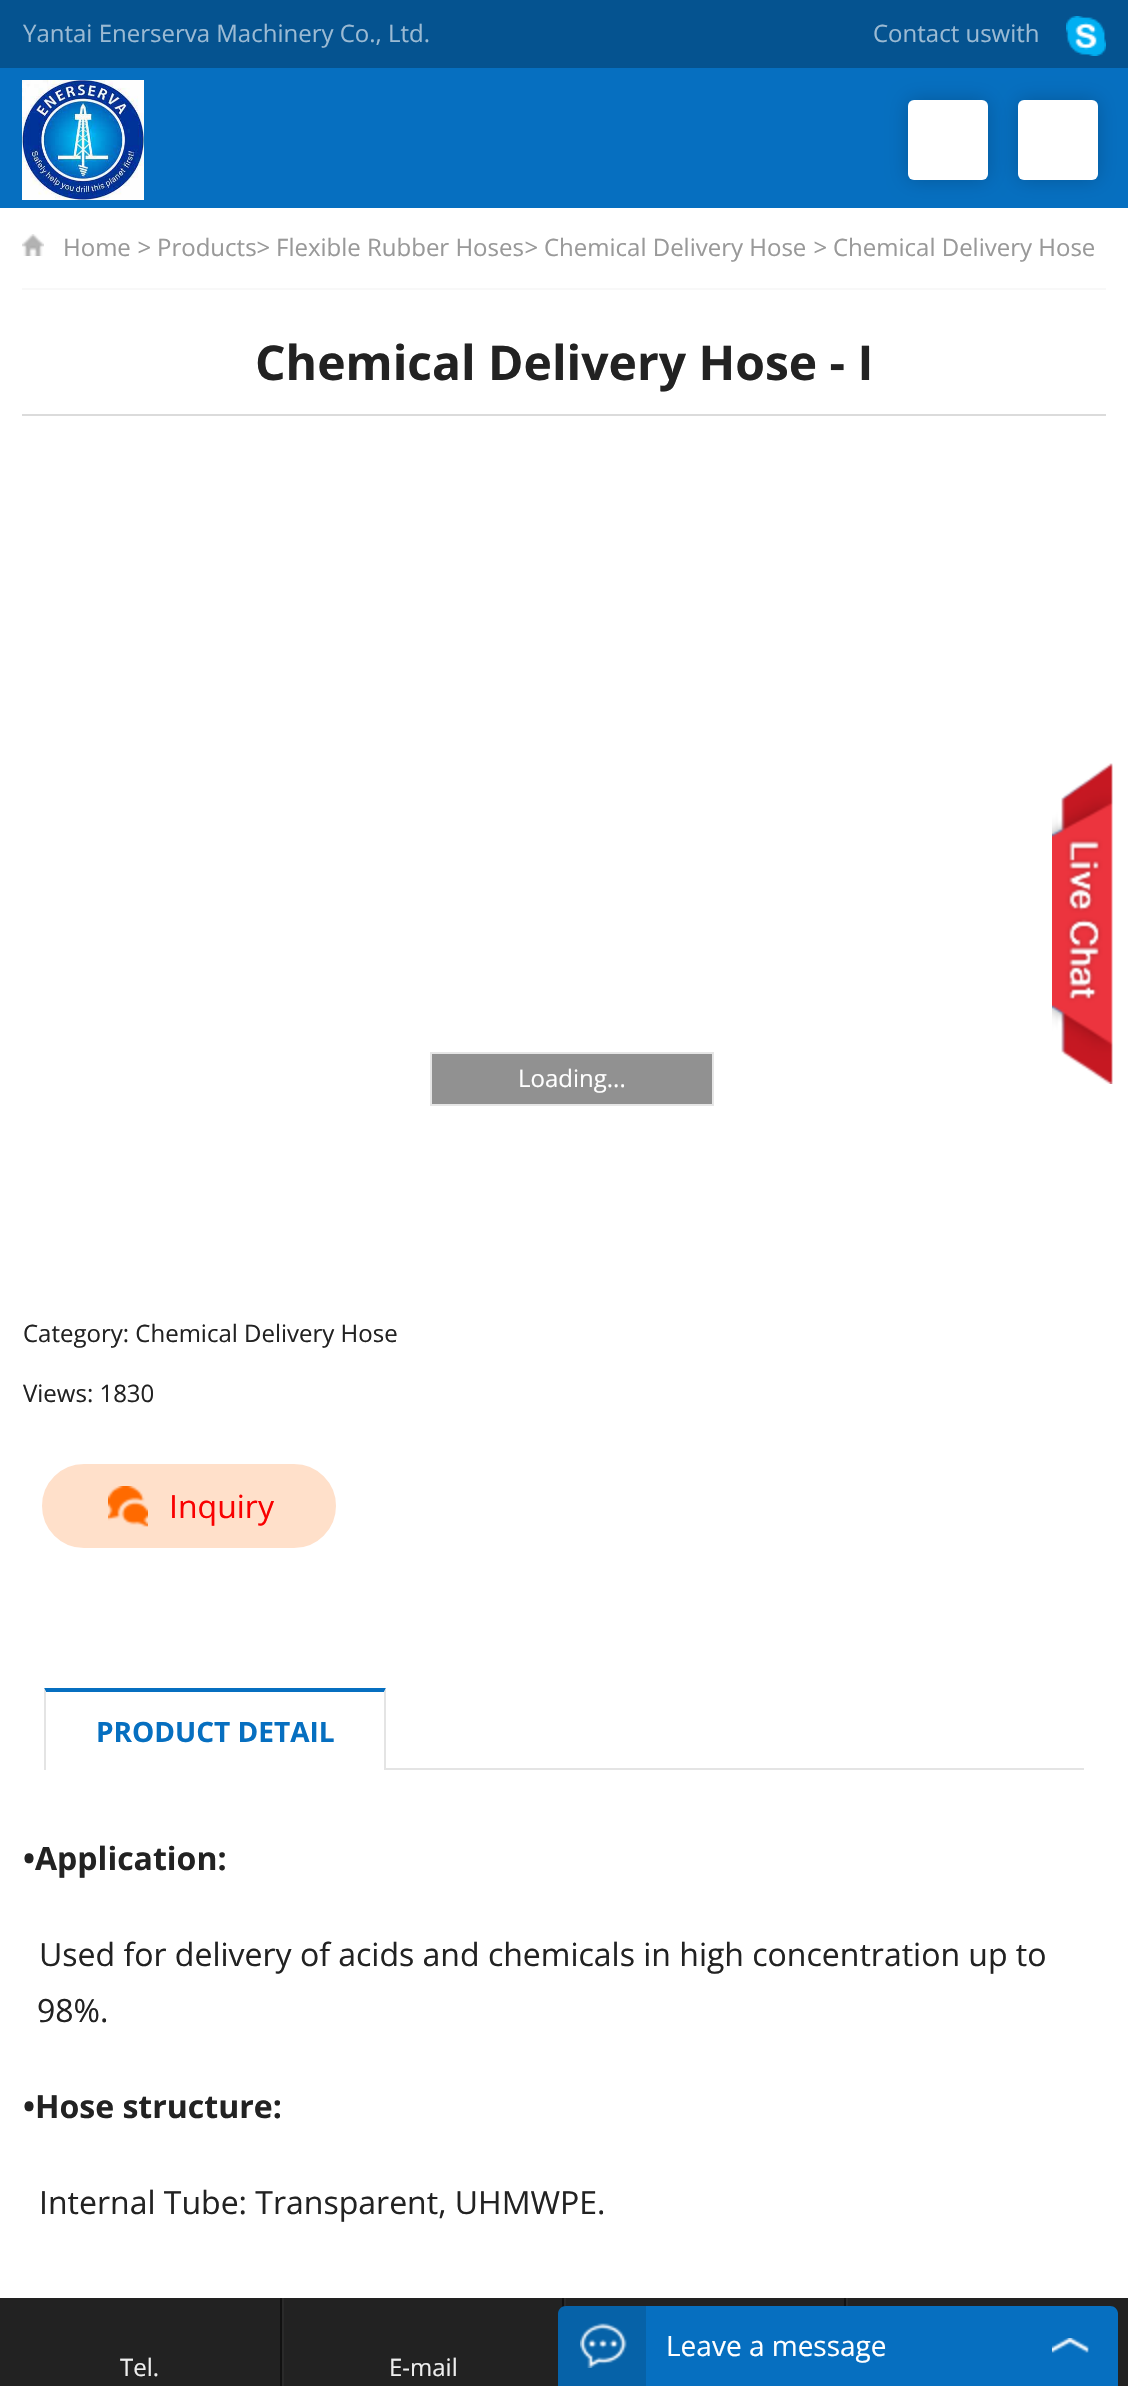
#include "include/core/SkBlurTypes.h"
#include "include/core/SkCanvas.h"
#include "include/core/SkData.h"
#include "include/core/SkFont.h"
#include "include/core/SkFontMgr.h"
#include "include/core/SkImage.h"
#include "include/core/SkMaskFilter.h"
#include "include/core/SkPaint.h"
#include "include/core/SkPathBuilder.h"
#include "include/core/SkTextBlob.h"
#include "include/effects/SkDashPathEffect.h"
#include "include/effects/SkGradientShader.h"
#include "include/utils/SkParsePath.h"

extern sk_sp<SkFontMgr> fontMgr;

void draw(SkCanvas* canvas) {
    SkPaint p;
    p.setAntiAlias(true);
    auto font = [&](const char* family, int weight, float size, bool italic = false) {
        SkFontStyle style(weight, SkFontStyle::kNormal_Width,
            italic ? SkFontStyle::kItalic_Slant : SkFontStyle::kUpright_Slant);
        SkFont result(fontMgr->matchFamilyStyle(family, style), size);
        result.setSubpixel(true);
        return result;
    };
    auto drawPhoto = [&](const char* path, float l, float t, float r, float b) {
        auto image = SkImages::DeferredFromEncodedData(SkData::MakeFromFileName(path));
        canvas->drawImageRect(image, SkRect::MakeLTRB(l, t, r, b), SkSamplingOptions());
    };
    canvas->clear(0xFFFFFFFF);
    p.setColor(0xFF066FC0);
    canvas->drawRect(SkRect::MakeLTRB(0, 68, 1128, 208), p);
    p.setColor(0xFF055390);
    canvas->drawRect(SkRect::MakeLTRB(0, 0, 1128, 68), p);
    auto font1 = font("Open Sans", 400, 24);
    p.setColor(0xFF9BBAD3);
    canvas->drawString("Yantai Enerserva Machinery Co., Ltd.", 23, 42, font1, p);
    canvas->drawString("Contact uswith", 873, 42, font1, p);
    drawPhoto("media/1.png", 1066, 16, 1106, 56);
    drawPhoto("media/2.png", 22, 80, 144, 200);
    p.setColor(0x33000000);
    p.setMaskFilter(SkMaskFilter::MakeBlur(kNormal_SkBlurStyle, 10));
    canvas->drawRoundRect(SkRect::MakeLTRB(908, 100, 988, 180), 6, 6, p);
    p.setMaskFilter(nullptr);
    p.setColor(0xFFFFFFFF);
    canvas->drawRoundRect(SkRect::MakeLTRB(908, 100, 988, 180), 6, 6, p);
    p.setColor(0x33000000);
    p.setMaskFilter(SkMaskFilter::MakeBlur(kNormal_SkBlurStyle, 10));
    canvas->drawRoundRect(SkRect::MakeLTRB(1018, 100, 1098, 180), 6, 6, p);
    p.setMaskFilter(nullptr);
    p.setColor(0xFFFFFFFF);
    canvas->drawRoundRect(SkRect::MakeLTRB(1018, 100, 1098, 180), 6, 6, p);
    p.setColor(0xFFF8F8F8);
    canvas->drawRect(SkRect::MakeLTRB(22, 288, 1106, 290), p);
    drawPhoto("media/3.png", 22, 234, 44, 256);
    p.setColor(0xFF999999);
    canvas->drawString("Home", 63, 256, font1, p);
    auto font2 = font("Open Sans", 400, 24, true);
    canvas->drawString(">", 137, 256, font2, p);
    canvas->drawString("Products", 157, 256, font1, p);
    canvas->drawString(">", 256, 256, font2, p);
    canvas->drawString("Flexible Rubber Hoses", 276, 256, font1, p);
    canvas->drawString(">", 524, 256, font2, p);
    canvas->drawString("Chemical Delivery Hose", 544, 256, font1, p);
    canvas->drawString(">", 813, 256, font2, p);
    canvas->drawString("Chemical Delivery Hose", 833, 256, font1, p);
    p.setColor(0xFFDBDBDB);
    canvas->drawRect(SkRect::MakeLTRB(22, 414, 1106, 416), p);
    auto font3 = font("Open Sans", 700, 48);
    p.setColor(0xFF222222);
    canvas->drawString("Chemical Delivery Hose - I", 255, 380, font3, p);
    p.setColor(0xFF919191);
    canvas->drawRect(SkRect::MakeLTRB(431, 1053, 713, 1105), p);
    p.setStyle(SkPaint::kStroke_Style);
    p.setStrokeWidth(2);
    p.setColor(0xFFE6E6E6);
    canvas->drawRect(SkRect::MakeLTRB(431, 1053, 713, 1105), p);
    p.setStyle(SkPaint::kFill_Style);
    p.setColor(0xFFFFFFFF);
    canvas->drawString("Loading...", 518, 1087, font1, p);
    p.setColor(0xFF222222);
    canvas->drawString("Category: Chemical Delivery Hose", 23, 1342, font1, p);
    canvas->drawString("Views: 1830", 23, 1402, font1, p);
    p.setColor(0xFFFFE0CA);
    canvas->drawRoundRect(SkRect::MakeLTRB(43, 1465, 335, 1547), 41, 41, p);
    p.setStyle(SkPaint::kStroke_Style);
    canvas->drawRoundRect(SkRect::MakeLTRB(43, 1465, 335, 1547), 41, 41, p);
    drawPhoto("media/4.png", 108, 1486, 148, 1527);
    auto font4 = font("Open Sans", 400, 32);
    p.setStyle(SkPaint::kFill_Style);
    p.setColor(0xFFF90000);
    canvas->drawString("Inquiry", 169, 1518, font4, p);
    p.setColor(0xFFE4E4E4);
    canvas->drawRect(SkRect::MakeLTRB(386, 1768, 1084, 1770), p);
    p.setColor(0xFF066FC0);
    canvas->drawPath(SkPathBuilder().moveTo(44, 1688).lineTo(386, 1688).lineTo(384, 1692).lineTo(46, 1692).close().detach(), p);
    p.setColor(0xFFE4E4E4);
    canvas->drawPath(SkPathBuilder().moveTo(386, 1688).lineTo(386, 1770).lineTo(384, 1770).lineTo(384, 1692).close().detach(), p);
    canvas->drawPath(SkPathBuilder().moveTo(44, 1770).lineTo(44, 1688).lineTo(46, 1692).lineTo(46, 1770).close().detach(), p);
    auto font5 = font("Open Sans", 700, 28);
    p.setColor(0xFF066FC0);
    canvas->drawString("PRODUCT DETAIL", 96, 1742, font5, p);
    auto font6 = font("Open Sans", 700, 32);
    p.setColor(0xFF222222);
    canvas->drawString("•Application:", 23, 1870, font6, p);
    canvas->drawString("Used for delivery of acids and chemicals in high concentration up to", 39, 1966, font4, p);
    canvas->drawString("98%.", 37, 2022, font4, p);
    canvas->drawString("•Hose structure:", 23, 2118, font6, p);
    canvas->drawString("Internal Tube: Transparent, UHMWPE.", 39, 2214, font4, p);
    drawPhoto("media/5.png", 1052, 763, 1113, 1084);
    {
        const struct { float l, t, r, b; SkColor color; } items[] = {
            {0, 2298, 1128, 2386, 0xFF222222},
            {564, 2298, 566, 2307, 0xFF2A2A2A},
            {562, 2298, 564, 2308, 0xFF111111},
        };
        for (auto [l, t, r, b, color] : items) {
            p.setColor(color);
            canvas->drawRect(SkRect::MakeLTRB(l, t, r, b), p);
        }
    }
    p.setColor(0xFF066FC0);
    canvas->drawPath(SkPathBuilder().moveTo(566, 2306).lineTo(1110, 2306).cubicTo(1114.5f, 2306, 1118, 2309.5f, 1118, 2314).lineTo(1118, 2386).lineTo(558, 2386).lineTo(558, 2314).cubicTo(558, 2309.5f, 561.5f, 2306, 566, 2306).close().detach(), p);
    drawPhoto("media/6.png", 1052, 2338, 1089, 2353);
    p.setColor(0x1F000000);
    canvas->drawPath(SkPathBuilder().moveTo(566, 2306).lineTo(646, 2306).lineTo(646, 2386).lineTo(558, 2386).lineTo(558, 2314).cubicTo(558, 2309.5f, 561.5f, 2306, 566, 2306).close().detach(), p);
    drawPhoto("media/7.png", 580, 2323, 627, 2368);
    auto font7 = font("Open Sans", 400, 28);
    p.setColor(0xFFFFFFFF);
    canvas->drawString("Leave a message", 666, 2356, font7, p);
    {
        const struct { float l, t, r, b; SkColor color; } items[] = {
            {844, 2298, 846, 2306, 0xFF111111},
            {846, 2298, 848, 2306, 0xFF2A2A2A},
            {280, 2298, 282, 2386, 0xFF111111},
        };
        for (auto [l, t, r, b, color] : items) {
            p.setColor(color);
            canvas->drawRect(SkRect::MakeLTRB(l, t, r, b), p);
        }
    }
    p.setColor(0xFFEEEEEE);
    canvas->drawString("Tel.", 120, 2376, font1, p);
    p.setColor(0xFF2A2A2A);
    canvas->drawRect(SkRect::MakeLTRB(282, 2298, 284, 2386), p);
    p.setColor(0xFFEEEEEE);
    canvas->drawString("E-mail", 389, 2376, font1, p);
}
